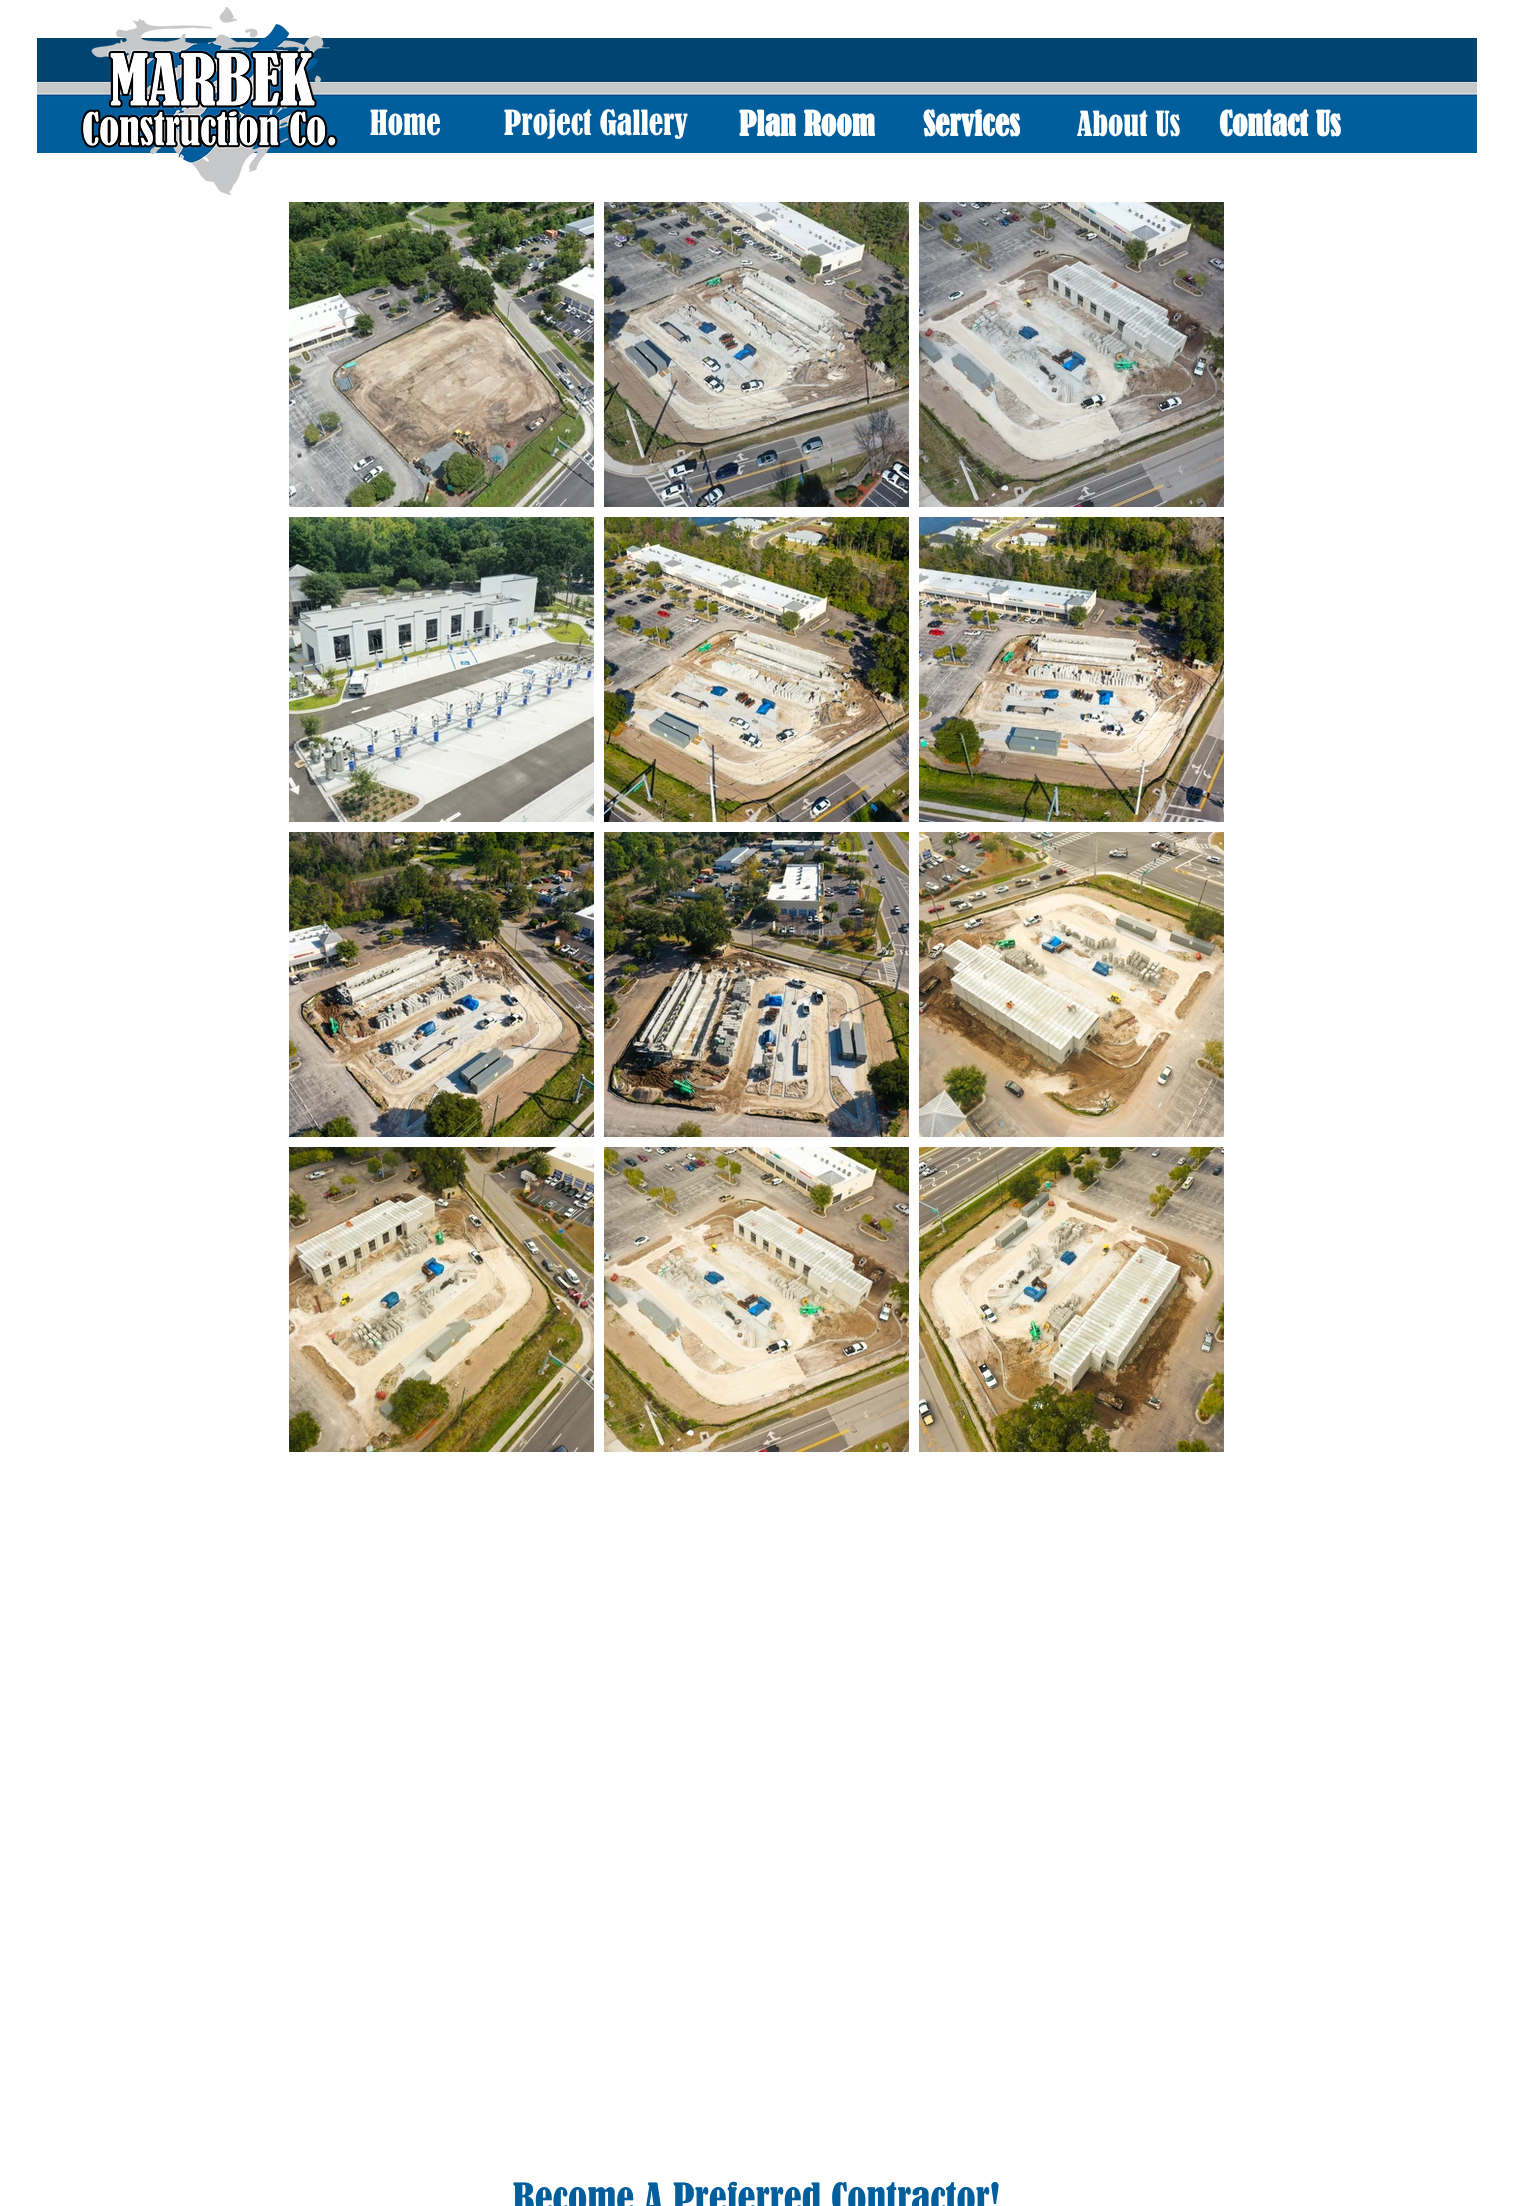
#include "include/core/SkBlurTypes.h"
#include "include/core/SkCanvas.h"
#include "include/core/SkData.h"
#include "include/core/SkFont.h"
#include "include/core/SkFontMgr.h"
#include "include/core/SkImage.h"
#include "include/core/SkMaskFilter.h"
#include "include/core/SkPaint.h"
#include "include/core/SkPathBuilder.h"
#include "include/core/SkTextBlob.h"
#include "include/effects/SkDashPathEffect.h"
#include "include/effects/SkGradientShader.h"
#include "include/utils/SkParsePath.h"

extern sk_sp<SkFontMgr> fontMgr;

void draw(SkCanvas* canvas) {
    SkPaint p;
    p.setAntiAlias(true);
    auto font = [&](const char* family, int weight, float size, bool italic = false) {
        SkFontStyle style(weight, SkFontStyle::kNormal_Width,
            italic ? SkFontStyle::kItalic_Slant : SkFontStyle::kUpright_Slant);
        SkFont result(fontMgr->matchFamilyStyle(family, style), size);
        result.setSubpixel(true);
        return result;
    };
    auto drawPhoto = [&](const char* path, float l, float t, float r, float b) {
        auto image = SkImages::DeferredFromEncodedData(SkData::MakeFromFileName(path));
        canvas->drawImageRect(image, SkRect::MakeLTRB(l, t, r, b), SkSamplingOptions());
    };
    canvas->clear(0xFFFFFFFF);
    drawPhoto("media/2.png", 37, 38, 1477, 153);
    drawPhoto("media/1.png", 81, 7, 338, 195);
    auto font1 = font("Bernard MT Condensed", 400, 32);
    p.setColor(0xFFFFFFFF);
    canvas->drawString("Home", 370, 135, font1, p);
    canvas->drawString("Project Gallery", 504, 135, font1, p);
    auto font2 = font("Bernard MT Condensed", 700, 32);
    canvas->drawString("Plan Room", 739, 136, font2, p);
    canvas->drawString("Services", 923, 136, font2, p);
    canvas->drawString("About Us", 1077, 136, font1, p);
    canvas->drawString("Contact Us", 1219, 136, font2, p);
    drawPhoto("media/3.png", 289, 202, 594, 507);
    drawPhoto("media/4.png", 604, 202, 909, 507);
    drawPhoto("media/5.png", 919, 202, 1224, 507);
    drawPhoto("media/6.png", 289, 517, 594, 822);
    drawPhoto("media/7.png", 604, 517, 909, 822);
    drawPhoto("media/8.png", 919, 517, 1224, 822);
    drawPhoto("media/9.png", 289, 832, 594, 1137);
    drawPhoto("media/10.png", 604, 832, 909, 1137);
    drawPhoto("media/11.png", 919, 832, 1224, 1137);
    drawPhoto("media/12.png", 289, 1147, 594, 1452);
    drawPhoto("media/13.png", 604, 1147, 909, 1452);
    drawPhoto("media/14.png", 919, 1147, 1224, 1452);
    auto font3 = font("Bernard MT Condensed", 400, 40);
    p.setColor(0xFF005E9D);
    canvas->drawString("Become A Preferred Contractor!", 513, 2214, font3, p);
}
